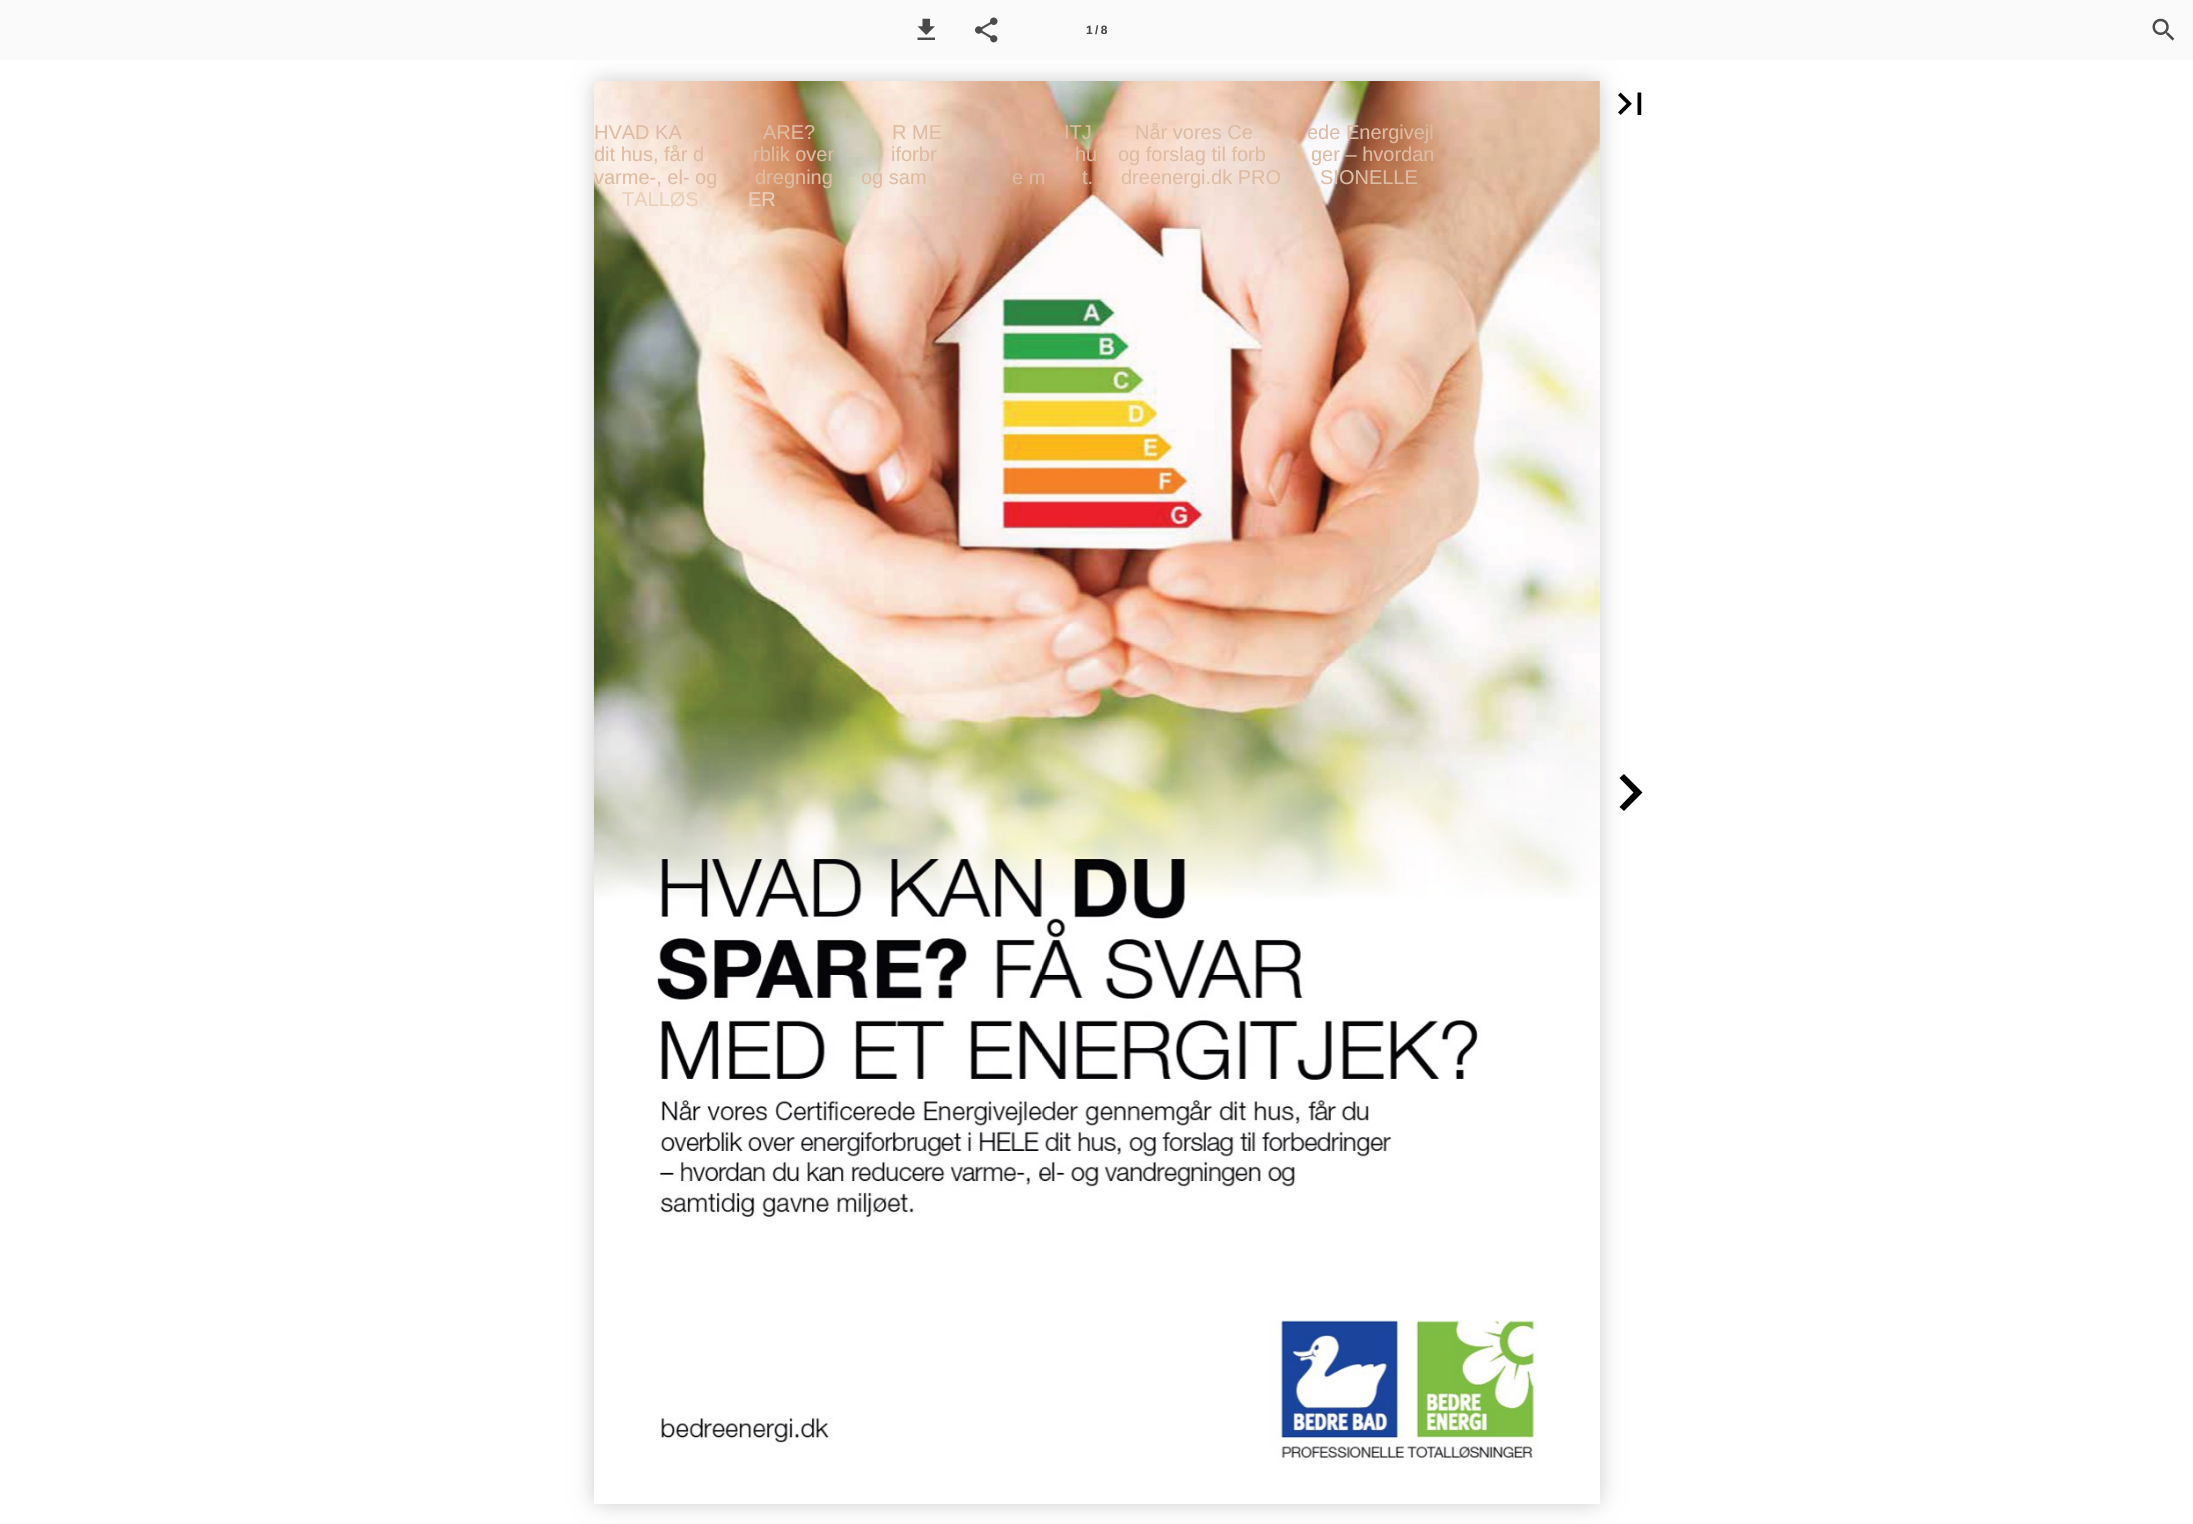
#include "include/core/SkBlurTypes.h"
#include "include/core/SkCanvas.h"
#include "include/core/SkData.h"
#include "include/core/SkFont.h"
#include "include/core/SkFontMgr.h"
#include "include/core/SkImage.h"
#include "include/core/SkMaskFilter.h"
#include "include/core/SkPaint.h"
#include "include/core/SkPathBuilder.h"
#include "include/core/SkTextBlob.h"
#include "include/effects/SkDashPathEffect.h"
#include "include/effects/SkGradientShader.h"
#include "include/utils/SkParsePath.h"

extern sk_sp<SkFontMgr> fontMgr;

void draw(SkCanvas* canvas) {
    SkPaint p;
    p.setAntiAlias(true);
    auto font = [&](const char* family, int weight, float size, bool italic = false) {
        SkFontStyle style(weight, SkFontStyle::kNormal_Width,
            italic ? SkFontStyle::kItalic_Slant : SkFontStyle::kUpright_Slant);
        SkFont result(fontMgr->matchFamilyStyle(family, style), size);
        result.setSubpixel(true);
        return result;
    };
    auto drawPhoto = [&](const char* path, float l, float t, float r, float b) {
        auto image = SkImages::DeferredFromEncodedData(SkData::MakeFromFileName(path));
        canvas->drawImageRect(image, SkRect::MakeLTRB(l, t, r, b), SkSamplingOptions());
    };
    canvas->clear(0xFFFFFFFF);
    p.setColor(0x33000000);
    p.setMaskFilter(SkMaskFilter::MakeBlur(kNormal_SkBlurStyle, 10));
    canvas->drawRect(SkRect::MakeLTRB(594, 81, 1600, 1504), p);
    p.setMaskFilter(nullptr);
    p.setColor(0xFFFAFAFA);
    canvas->drawRect(SkRect::MakeLTRB(0, 0, 2193, 60), p);
    drawPhoto("media/1.png", 917, 18, 935, 40);
    drawPhoto("media/2.png", 975, 17, 998, 43);
    auto font1 = font("Liberation Sans", 700, 12);
    p.setColor(0xFF4A4A4A);
    canvas->drawString("1 / 8", 1086, 34, font1, p);
    drawPhoto("media/3.png", 2152, 18, 2175, 41);
    p.setColor(0xFFFFFFFF);
    canvas->drawRect(SkRect::MakeLTRB(594, 81, 1600, 1504), p);
    drawPhoto("media/4.png", 594, 81, 1600, 1460);
    auto font2 = font("Liberation Sans", 400, 20);
    p.setColor(0xFFDEBCA4);
    {
        const struct { const char* s; float x, y; } items[] = {
            {"HVAD KA", 594, 139},
            {"ARE?", 763, 139},
            {"R ME", 892, 139},
            {"ITJ", 1064, 139},
            {"Når vores Ce", 1135, 139},
            {"ede Energivejl", 1307, 139},
            {"dit hus, får d", 594, 161},
            {"rblik over", 753, 161},
            {"iforbr", 891, 161},
            {"hu", 1075, 161},
            {"og forslag til forb", 1118, 161},
            {"ger – hvordan", 1311, 161},
            {"varme-, el- og", 594, 184},
            {"dregning", 755, 184},
            {"og sam", 861, 184},
            {"e m", 1012, 184},
            {"t.", 1082, 184},
            {"dreenergi.dk PRO", 1121, 184},
            {"SIONELLE", 1320, 184},
        };
        for (auto [s, x, y] : items) {
            canvas->drawString(s, x, y, font2, p);
        }
    }
    p.setColor(0xFFEACFB9);
    canvas->drawString("TALLØS", 622, 206, font2, p);
    canvas->drawString("ER", 748, 206, font2, p);
    drawPhoto("media/5.png", 1618, 92, 1642, 115);
    p.setColor(0xFF000000);
    canvas->drawPath(SkPathBuilder().moveTo(1624, 774).lineTo(1619.5f, 778).lineTo(1633.5f, 792.5f).lineTo(1619.5f, 807).lineTo(1624, 811).lineTo(1642.5f, 792.5f).close().detach(), p);
}
